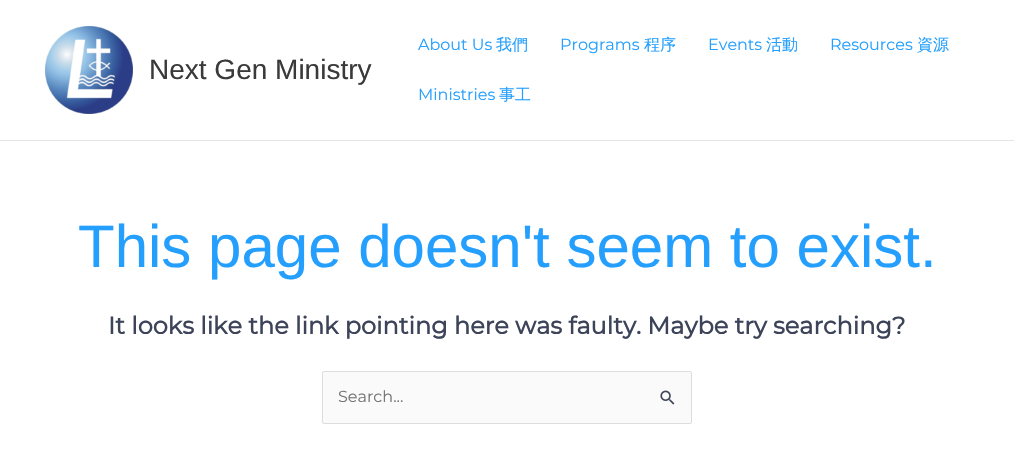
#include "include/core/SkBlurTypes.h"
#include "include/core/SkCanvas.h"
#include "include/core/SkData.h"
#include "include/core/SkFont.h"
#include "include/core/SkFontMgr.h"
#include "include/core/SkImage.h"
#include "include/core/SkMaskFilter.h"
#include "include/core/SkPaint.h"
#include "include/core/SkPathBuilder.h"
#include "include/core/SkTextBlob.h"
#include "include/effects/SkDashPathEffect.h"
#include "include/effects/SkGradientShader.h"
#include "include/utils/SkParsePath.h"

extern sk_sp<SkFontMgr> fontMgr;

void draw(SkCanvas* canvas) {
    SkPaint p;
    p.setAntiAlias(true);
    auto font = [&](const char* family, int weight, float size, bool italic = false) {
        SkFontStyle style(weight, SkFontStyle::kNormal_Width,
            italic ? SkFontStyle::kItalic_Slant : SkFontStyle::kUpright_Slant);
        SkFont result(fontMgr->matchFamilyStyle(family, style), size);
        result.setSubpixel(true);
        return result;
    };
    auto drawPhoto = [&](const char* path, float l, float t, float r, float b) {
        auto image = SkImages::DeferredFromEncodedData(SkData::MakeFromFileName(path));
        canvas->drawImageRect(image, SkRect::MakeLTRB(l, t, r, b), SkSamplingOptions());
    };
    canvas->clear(0xFFFFFFFF);
    p.setColor(0xFFE5E5E5);
    canvas->drawRect(SkRect::MakeLTRB(0, 140, 1014, 141), p);
    drawPhoto("media/1.png", 45, 26, 133, 114);
    auto font1 = font("Liberation Sans", 400, 28);
    p.setColor(0xFF3A3A3A);
    canvas->drawString("Next Gen Ministry", 149, 79, font1, p);
    auto font2 = font("Montserrat", 100, 16);
    p.setColor(0xFF249FFE);
    canvas->drawString("About Us", 418, 50, font2, p);
    auto font3 = font("WenQuanYi Zen Hei", 500, 16);
    canvas->drawString("我們", 496, 50, font3, p);
    canvas->drawString("Programs", 560, 50, font2, p);
    canvas->drawString("程序", 644, 50, font3, p);
    canvas->drawString("Events", 708, 50, font2, p);
    canvas->drawString("活動", 766, 50, font3, p);
    canvas->drawString("Resources", 830, 50, font2, p);
    canvas->drawString("資源", 917, 50, font3, p);
    canvas->drawString("Ministries", 418, 100, font2, p);
    canvas->drawString("事工", 499, 100, font3, p);
    auto font4 = font("Liberation Sans", 400, 60);
    canvas->drawString("This page doesn't seem to exist.", 78, 267, font4, p);
    auto font5 = font("Montserrat", 700, 24);
    p.setColor(0xFF3D4459);
    canvas->drawString("It looks like the link pointing here was faulty. Maybe try searching?", 108, 334, font5, p);
    p.setColor(0xFFFAFAFA);
    canvas->drawRoundRect(SkRect::MakeLTRB(322.5f, 371.5f, 691.5f, 423.5f), 1.5f, 1.5f, p);
    p.setStyle(SkPaint::kStroke_Style);
    p.setStrokeWidth(1);
    p.setColor(0xFFDDDDDD);
    canvas->drawRoundRect(SkRect::MakeLTRB(322.5f, 371.5f, 691.5f, 423.5f), 1.5f, 1.5f, p);
    p.setStyle(SkPaint::kFill_Style);
    p.setColor(0xFF757575);
    canvas->drawString("Search...", 338, 402, font2, p);
    drawPhoto("media/2.png", 660, 390, 675, 405);
}
